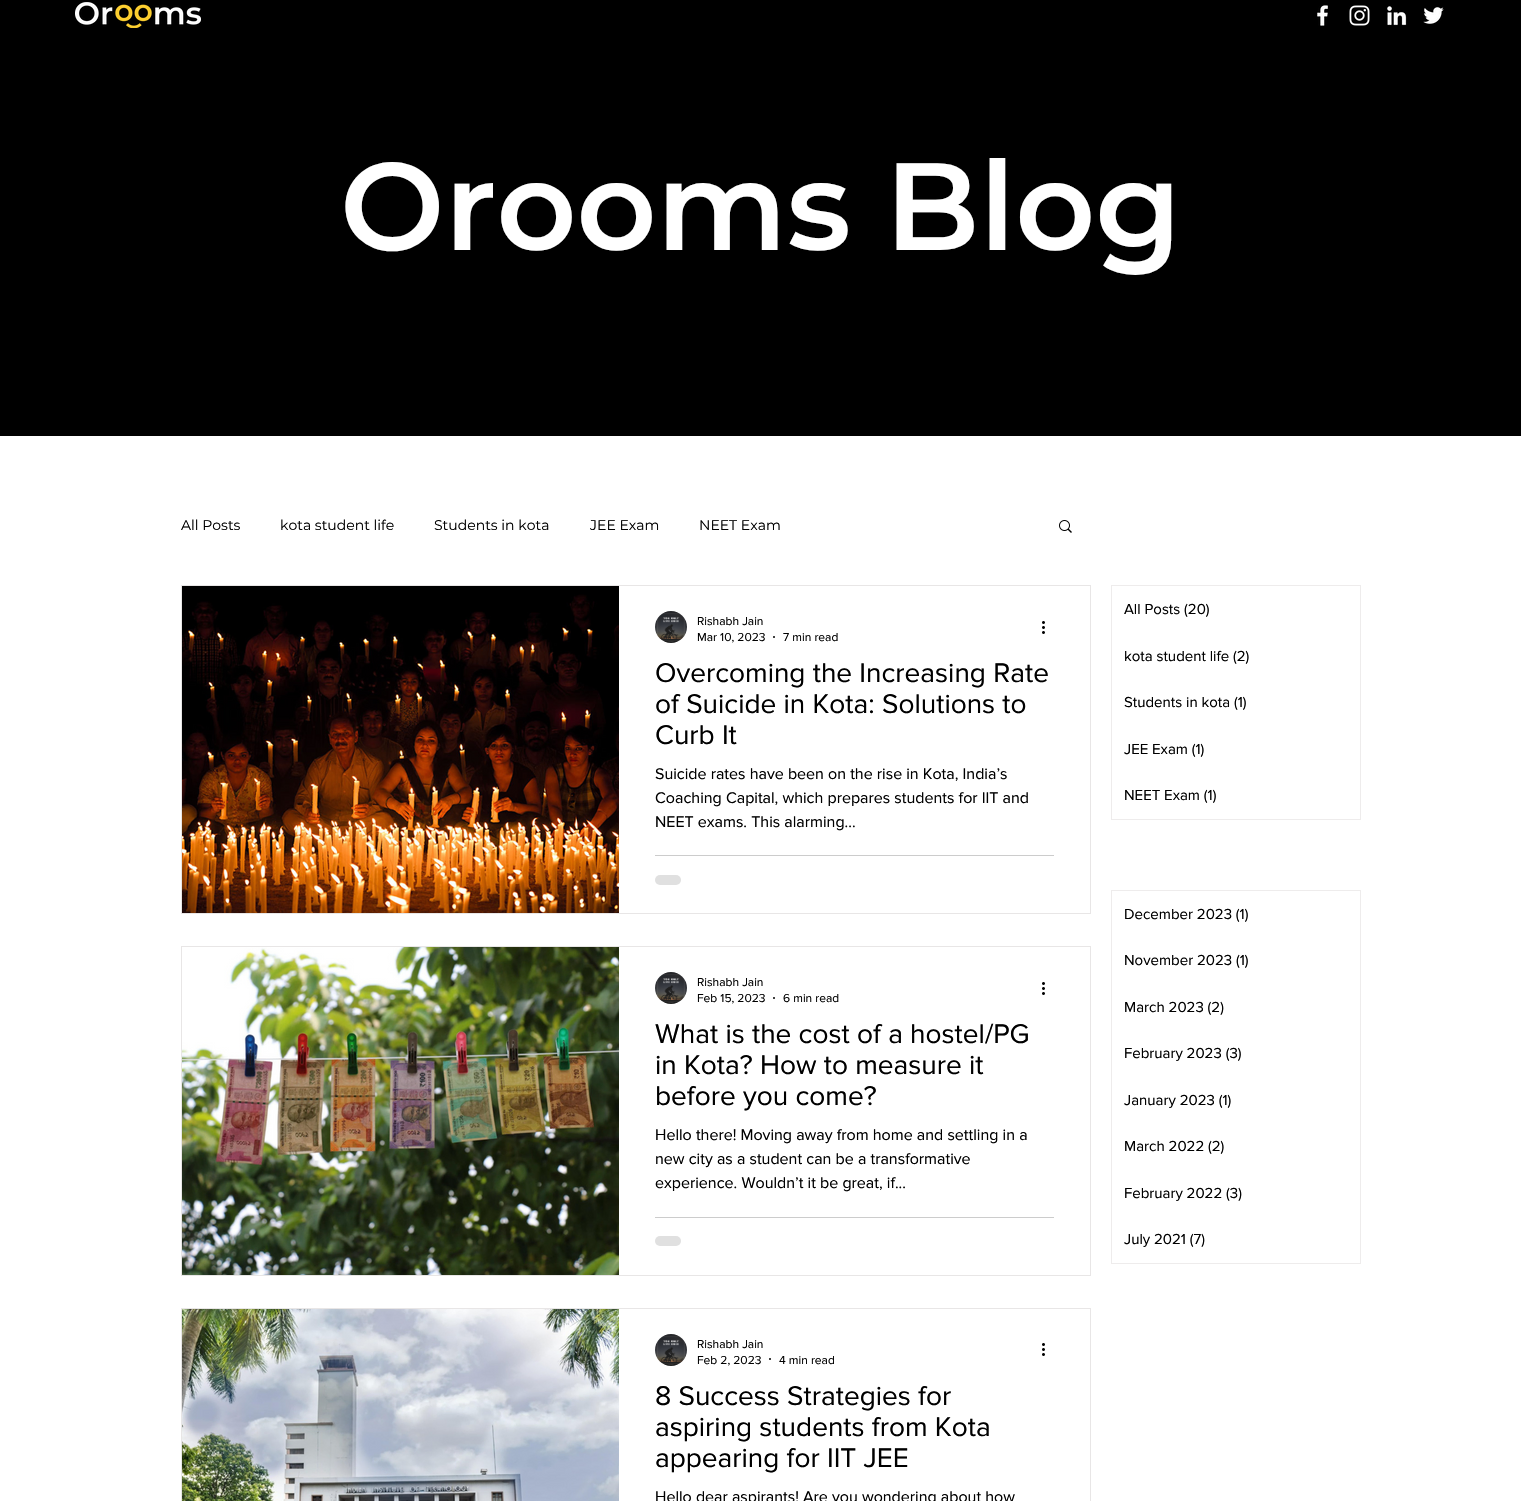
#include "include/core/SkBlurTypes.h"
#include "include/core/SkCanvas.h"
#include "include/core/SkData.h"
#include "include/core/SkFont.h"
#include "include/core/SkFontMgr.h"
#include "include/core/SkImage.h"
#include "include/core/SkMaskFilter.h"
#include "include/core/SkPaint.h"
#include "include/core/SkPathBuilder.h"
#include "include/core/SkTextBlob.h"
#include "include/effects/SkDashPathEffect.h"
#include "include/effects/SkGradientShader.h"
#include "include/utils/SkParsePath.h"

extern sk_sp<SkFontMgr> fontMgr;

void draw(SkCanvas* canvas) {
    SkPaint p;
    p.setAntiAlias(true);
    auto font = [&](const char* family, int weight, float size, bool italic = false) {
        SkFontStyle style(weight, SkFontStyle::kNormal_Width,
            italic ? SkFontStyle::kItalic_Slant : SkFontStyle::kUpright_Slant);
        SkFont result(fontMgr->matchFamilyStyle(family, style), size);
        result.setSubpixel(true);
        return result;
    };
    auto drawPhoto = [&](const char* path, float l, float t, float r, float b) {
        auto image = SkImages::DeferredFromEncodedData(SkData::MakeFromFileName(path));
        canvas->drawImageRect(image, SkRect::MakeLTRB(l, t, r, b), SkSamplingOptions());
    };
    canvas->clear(0xFFFFFFFF);
    p.setColor(0xFF000000);
    canvas->drawRect(SkRect::MakeLTRB(0, 0, 1521, 436), p);
    drawPhoto("media/1.png", 75, 2, 201, 28);
    drawPhoto("media/2.png", 1317, 5, 1328, 26);
    drawPhoto("media/3.png", 1349, 5, 1370, 26);
    drawPhoto("media/4.png", 1387, 6, 1407, 26);
    drawPhoto("media/5.png", 1423, 7, 1444, 24);
    auto font1 = font("Montserrat", 600, 124);
    p.setColor(0xFFFFFFFF);
    canvas->drawString("Orooms Blog", 340, 250, font1, p);
    auto font2 = font("Montserrat", 400, 14);
    p.setColor(0xFF000000);
    {
        const struct { const char* s; float x, y; } items[] = {
            {"All Posts", 181, 530},
            {"kota student life", 280, 530},
            {"Students in kota", 434, 530},
            {"JEE Exam", 590, 530},
            {"NEET Exam", 699, 530},
        };
        for (auto [s, x, y] : items) {
            canvas->drawString(s, x, y, font2, p);
        }
    }
    drawPhoto("media/6.png", 1059, 520, 1072, 533);
    p.setStyle(SkPaint::kStroke_Style);
    p.setStrokeWidth(1);
    p.setColor(0xFFE8E6E6);
    canvas->drawRect(SkRect::MakeLTRB(181.5f, 585.5f, 1090.5f, 913.5f), p);
    drawPhoto("media/7.png", 182, 586, 619, 913);
    drawPhoto("media/8.png", 655, 611, 687, 643);
    auto font3 = font("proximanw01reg", 400, 12);
    p.setStyle(SkPaint::kFill_Style);
    p.setColor(0xFF000000);
    canvas->drawString("Rishabh Jain", 697, 625, font3, p);
    canvas->drawString("Mar 10, 2023", 697, 641, font3, p);
    canvas->drawCircle(774, 637, 1, p);
    canvas->drawString("7 min read", 783, 641, font3, p);
    drawPhoto("media/9.png", 1042, 621, 1045, 634);
    auto font4 = font("proximanw01reg", 400, 28);
    {
        const struct { const char* s; float x, y; } items[] = {
            {"Overcoming the Increasing Rate", 655, 682},
            {"of Suicide in Kota: Solutions to", 655, 713},
            {"Curb It", 655, 744},
        };
        for (auto [s, x, y] : items) {
            canvas->drawString(s, x, y, font4, p);
        }
    }
    auto font5 = font("proximanw01reg", 400, 16);
    {
        const struct { const char* s; float x, y; } items[] = {
            {"Suicide rates have been on the rise in Kota, India’s", 655, 779},
            {"Coaching Capital, which prepares students for IIT and", 655, 803},
            {"NEET exams. This alarming...", 655, 827},
        };
        for (auto [s, x, y] : items) {
            canvas->drawString(s, x, y, font5, p);
        }
    }
    p.setColor(0xFFCCCCCC);
    canvas->drawRect(SkRect::MakeLTRB(655, 855, 1054, 856), p);
    p.setColor(0xFFE0E0E0);
    canvas->drawRoundRect(SkRect::MakeLTRB(655, 875, 681, 885), 5, 5, p);
    p.setStyle(SkPaint::kStroke_Style);
    p.setColor(0xFFE8E6E6);
    canvas->drawRect(SkRect::MakeLTRB(181.5f, 946.5f, 1090.5f, 1275.5f), p);
    drawPhoto("media/10.png", 182, 947, 619, 1275);
    drawPhoto("media/8.png", 655, 972, 687, 1004);
    p.setStyle(SkPaint::kFill_Style);
    p.setColor(0xFF000000);
    canvas->drawString("Rishabh Jain", 697, 986, font3, p);
    canvas->drawString("Feb 15, 2023", 697, 1002, font3, p);
    canvas->drawCircle(774, 998, 1, p);
    canvas->drawString("6 min read", 783, 1002, font3, p);
    drawPhoto("media/9.png", 1042, 982, 1045, 995);
    {
        const struct { const char* s; float x, y; } items[] = {
            {"What is the cost of a hostel/PG", 655, 1043},
            {"in Kota? How to measure it", 655, 1074},
            {"before you come?", 655, 1105},
        };
        for (auto [s, x, y] : items) {
            canvas->drawString(s, x, y, font4, p);
        }
    }
    {
        const struct { const char* s; float x, y; } items[] = {
            {"Hello there! Moving away from home and settling in a", 655, 1140},
            {"new city as a student can be a transformative", 655, 1164},
            {"experience. Wouldn’t it be great, if...", 655, 1188},
        };
        for (auto [s, x, y] : items) {
            canvas->drawString(s, x, y, font5, p);
        }
    }
    p.setColor(0xFFCCCCCC);
    canvas->drawRect(SkRect::MakeLTRB(655, 1217, 1054, 1218), p);
    p.setColor(0xFFE0E0E0);
    canvas->drawRoundRect(SkRect::MakeLTRB(655, 1236, 681, 1246), 5, 5, p);
    p.setStyle(SkPaint::kStroke_Style);
    p.setColor(0xFFE8E6E6);
    canvas->drawRect(SkRect::MakeLTRB(181.5f, 1308.5f, 1090.5f, 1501.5f), p);
    drawPhoto("media/11.png", 182, 1309, 619, 1501);
    drawPhoto("media/8.png", 655, 1334, 687, 1366);
    p.setStyle(SkPaint::kFill_Style);
    p.setColor(0xFF000000);
    canvas->drawString("Rishabh Jain", 697, 1348, font3, p);
    canvas->drawString("Feb 2, 2023", 697, 1364, font3, p);
    canvas->drawCircle(770, 1359, 1, p);
    canvas->drawString("4 min read", 779, 1364, font3, p);
    drawPhoto("media/9.png", 1042, 1343, 1045, 1356);
    {
        const struct { const char* s; float x, y; } items[] = {
            {"8 Success Strategies for", 655, 1405},
            {"aspiring students from Kota", 655, 1436},
            {"appearing for IIT JEE", 655, 1467},
        };
        for (auto [s, x, y] : items) {
            canvas->drawString(s, x, y, font4, p);
        }
    }
    canvas->drawString("Hello dear aspirants! Are you wondering about how", 655, 1502, font5, p);
    p.setStyle(SkPaint::kStroke_Style);
    p.setColor(0xFFEEECEC);
    canvas->drawRect(SkRect::MakeLTRB(1111.5f, 585.5f, 1360.5f, 819.5f), p);
    auto font6 = font("proximanw01reg", 400, 15);
    p.setStyle(SkPaint::kFill_Style);
    p.setColor(0xFF000000);
    {
        const struct { const char* s; float x, y; } items[] = {
            {"All Posts (20)", 1124, 614},
            {"kota student life (2)", 1124, 661},
            {"Students in kota (1)", 1124, 707},
            {"JEE Exam (1)", 1124, 754},
            {"NEET Exam (1)", 1124, 800},
        };
        for (auto [s, x, y] : items) {
            canvas->drawString(s, x, y, font6, p);
        }
    }
    p.setStyle(SkPaint::kStroke_Style);
    p.setColor(0xFFEEECEC);
    canvas->drawRect(SkRect::MakeLTRB(1111.5f, 890.5f, 1360.5f, 1263.5f), p);
    p.setStyle(SkPaint::kFill_Style);
    p.setColor(0xFF000000);
    {
        const struct { const char* s; float x, y; } items[] = {
            {"December 2023 (1)", 1124, 919},
            {"November 2023 (1)", 1124, 965},
            {"March 2023 (2)", 1124, 1012},
            {"February 2023 (3)", 1124, 1058},
            {"January 2023 (1)", 1124, 1105},
            {"March 2022 (2)", 1124, 1151},
            {"February 2022 (3)", 1124, 1198},
            {"July 2021 (7)", 1124, 1244},
        };
        for (auto [s, x, y] : items) {
            canvas->drawString(s, x, y, font6, p);
        }
    }
}
